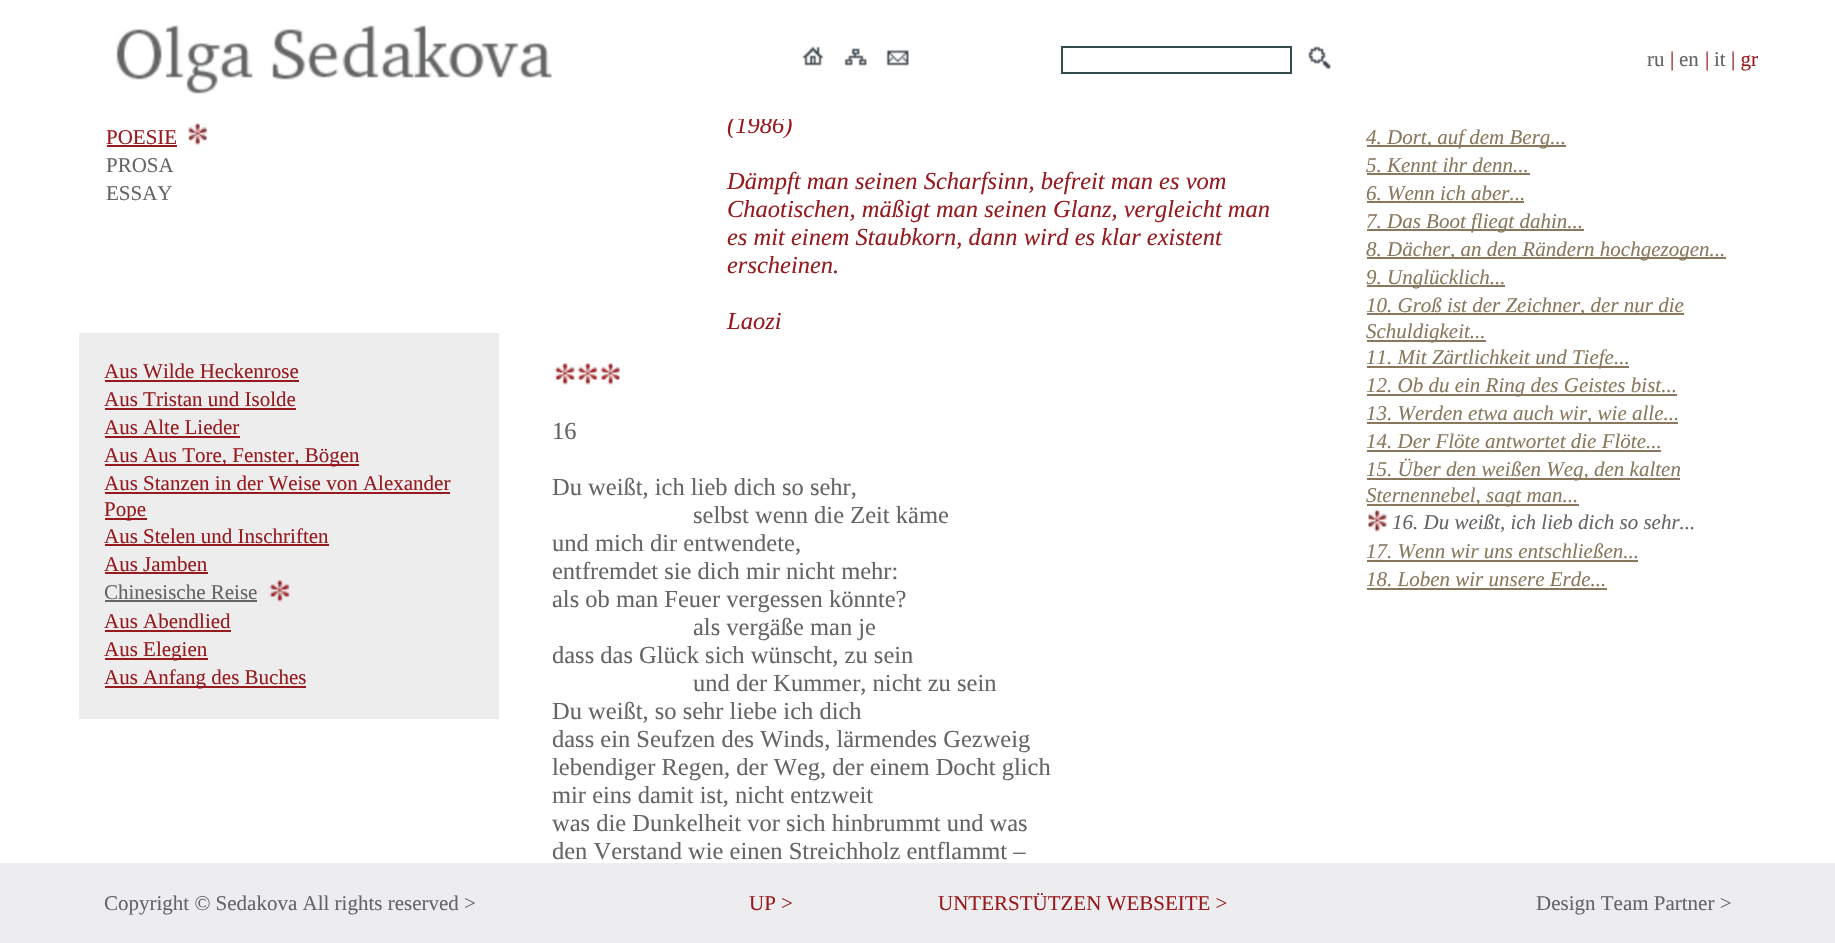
#include "include/core/SkBlurTypes.h"
#include "include/core/SkCanvas.h"
#include "include/core/SkData.h"
#include "include/core/SkFont.h"
#include "include/core/SkFontMgr.h"
#include "include/core/SkImage.h"
#include "include/core/SkMaskFilter.h"
#include "include/core/SkPaint.h"
#include "include/core/SkPathBuilder.h"
#include "include/core/SkTextBlob.h"
#include "include/effects/SkDashPathEffect.h"
#include "include/effects/SkGradientShader.h"
#include "include/utils/SkParsePath.h"

extern sk_sp<SkFontMgr> fontMgr;

void draw(SkCanvas* canvas) {
    SkPaint p;
    p.setAntiAlias(true);
    auto font = [&](const char* family, int weight, float size, bool italic = false) {
        SkFontStyle style(weight, SkFontStyle::kNormal_Width,
            italic ? SkFontStyle::kItalic_Slant : SkFontStyle::kUpright_Slant);
        SkFont result(fontMgr->matchFamilyStyle(family, style), size);
        result.setSubpixel(true);
        return result;
    };
    auto drawPhoto = [&](const char* path, float l, float t, float r, float b) {
        auto image = SkImages::DeferredFromEncodedData(SkData::MakeFromFileName(path));
        canvas->drawImageRect(image, SkRect::MakeLTRB(l, t, r, b), SkSamplingOptions());
    };
    canvas->clear(0xFFFFFFFF);
    auto font1 = font("Liberation Serif", 400, 24.5f, true);
    p.setColor(0xFF971B1E);
    canvas->drawString("(1986)", 727, 133, font1, p);
    p.setColor(0xFFFFFFFF);
    canvas->drawRect(SkRect::MakeLTRB(732, 116, 791, 119), p);
    drawPhoto("media/1.png", 116, 25, 552, 94);
    drawPhoto("media/2.png", 802, 46, 824, 66);
    drawPhoto("media/3.png", 844, 48, 867, 66);
    drawPhoto("media/4.png", 886, 49, 909, 66);
    p.setStyle(SkPaint::kStroke_Style);
    p.setStrokeWidth(2);
    p.setColor(0xFF324B4D);
    canvas->drawRect(SkRect::MakeLTRB(1062, 47, 1291, 73), p);
    drawPhoto("media/5.png", 1307, 46, 1331, 70);
    auto font2 = font("Liberation Serif", 400, 21);
    p.setStyle(SkPaint::kFill_Style);
    p.setColor(0xFF636567);
    canvas->drawString("ru", 1647, 66, font2, p);
    p.setColor(0xFF971B1E);
    canvas->drawString("|", 1670, 66, font2, p);
    p.setColor(0xFF636567);
    canvas->drawString("en", 1679, 66, font2, p);
    p.setColor(0xFF971B1E);
    canvas->drawString("|", 1705, 66, font2, p);
    p.setColor(0xFF636567);
    canvas->drawString("it", 1714, 66, font2, p);
    p.setColor(0xFF971B1E);
    canvas->drawString("| gr", 1731, 66, font2, p);
    canvas->drawString("POESIE", 106, 144, font2, p);
    canvas->drawRect(SkRect::MakeLTRB(107, 145, 177, 147), p);
    drawPhoto("media/6.png", 188, 122, 208, 145);
    p.setColor(0xFF636567);
    canvas->drawString("PROSA", 106, 172, font2, p);
    canvas->drawString("ESSAY", 106, 200, font2, p);
    p.setColor(0xFFEDEDEE);
    canvas->drawRect(SkRect::MakeLTRB(79, 333, 499, 719), p);
    p.setColor(0xFF971B1E);
    canvas->drawString("Aus Wilde Heckenrose", 104, 378, font2, p);
    canvas->drawRect(SkRect::MakeLTRB(105, 380, 299, 382), p);
    canvas->drawString("Aus Tristan und Isolde", 104, 406, font2, p);
    canvas->drawRect(SkRect::MakeLTRB(105, 408, 296, 410), p);
    canvas->drawString("Aus Alte Lieder", 104, 434, font2, p);
    canvas->drawRect(SkRect::MakeLTRB(105, 436, 240, 438), p);
    canvas->drawRect(SkRect::MakeLTRB(105, 464, 359, 466), p);
    canvas->drawString("Aus Aus Tore, Fenster, Bögen", 104, 462, font2, p);
    canvas->drawString("Aus Stanzen in der Weise von Alexander", 104, 490, font2, p);
    canvas->drawRect(SkRect::MakeLTRB(105, 492, 450, 494), p);
    canvas->drawRect(SkRect::MakeLTRB(105, 518, 147, 520), p);
    canvas->drawString("Pope", 104, 516, font2, p);
    canvas->drawString("Aus Stelen und Inschriften", 104, 543, font2, p);
    canvas->drawRect(SkRect::MakeLTRB(105, 544, 329, 546), p);
    canvas->drawString("Aus Jamben", 104, 571, font2, p);
    canvas->drawRect(SkRect::MakeLTRB(105, 572, 208, 574), p);
    p.setColor(0xFF636567);
    canvas->drawString("Chinesische Reise", 104, 599, font2, p);
    canvas->drawRect(SkRect::MakeLTRB(105, 600, 257, 602), p);
    drawPhoto("media/7.png", 269, 580, 290, 602);
    p.setColor(0xFF971B1E);
    canvas->drawString("Aus Abendlied", 104, 628, font2, p);
    canvas->drawRect(SkRect::MakeLTRB(105, 630, 231, 632), p);
    canvas->drawRect(SkRect::MakeLTRB(105, 658, 208, 660), p);
    canvas->drawString("Aus Elegien", 104, 656, font2, p);
    canvas->drawRect(SkRect::MakeLTRB(105, 686, 306, 688), p);
    canvas->drawString("Aus Anfang des Buches", 104, 684, font2, p);
    {
        const struct { const char* s; float x, y; } items[] = {
            {"Dämpft man seinen Scharfsinn, befreit man es vom", 727, 189},
            {"Chaotischen, mäßigt man seinen Glanz, vergleicht man", 727, 217},
            {"es mit einem Staubkorn, dann wird es klar existent", 727, 245},
            {"erscheinen.", 727, 273},
            {"Laozi", 727, 329},
        };
        for (auto [s, x, y] : items) {
            canvas->drawString(s, x, y, font1, p);
        }
    }
    drawPhoto("media/8.png", 554, 363, 620, 385);
    auto font3 = font("Liberation Serif", 400, 24.5f);
    p.setColor(0xFF636567);
    {
        const struct { const char* s; float x, y; } items[] = {
            {"16", 552, 439},
            {"Du weißt, ich lieb dich so sehr,", 552, 495},
            {"selbst wenn die Zeit käme", 693, 523},
            {"und mich dir entwendete,", 552, 551},
            {"entfremdet sie dich mir nicht mehr:", 552, 579},
            {"als ob man Feuer vergessen könnte?", 552, 607},
            {"als vergäße man je", 693, 635},
            {"dass das Glück sich wünscht, zu sein", 552, 663},
            {"und der Kummer, nicht zu sein", 693, 691},
            {"Du weißt, so sehr liebe ich dich", 552, 719},
            {"dass ein Seufzen des Winds, lärmendes Gezweig", 552, 747},
            {"lebendiger Regen, der Weg, der einem Docht glich", 552, 775},
            {"mir eins damit ist, nicht entzweit", 552, 803},
            {"was die Dunkelheit vor sich hinbrummt und was", 552, 831},
            {"den Verstand wie einen Streichholz entflammt –", 552, 859},
        };
        for (auto [s, x, y] : items) {
            canvas->drawString(s, x, y, font3, p);
        }
    }
    p.setColor(0xFF89785D);
    canvas->drawRect(SkRect::MakeLTRB(1367, 145, 1566, 147), p);
    auto font4 = font("Liberation Serif", 400, 21, true);
    canvas->drawString("4. Dort, auf dem Berg...", 1366, 144, font4, p);
    canvas->drawString("5. Kennt ihr denn...", 1366, 172, font4, p);
    canvas->drawRect(SkRect::MakeLTRB(1367, 173, 1530, 175), p);
    canvas->drawString("6. Wenn ich aber...", 1366, 200, font4, p);
    canvas->drawRect(SkRect::MakeLTRB(1367, 201, 1524, 203), p);
    canvas->drawRect(SkRect::MakeLTRB(1367, 229, 1584, 231), p);
    canvas->drawString("7. Das Boot fliegt dahin...", 1366, 228, font4, p);
    canvas->drawRect(SkRect::MakeLTRB(1367, 257, 1726, 259), p);
    canvas->drawString("8. Dächer, an den Rändern hochgezogen...", 1366, 256, font4, p);
    canvas->drawRect(SkRect::MakeLTRB(1367, 285, 1505, 287), p);
    canvas->drawString("9. Unglücklich...", 1366, 284, font4, p);
    canvas->drawRect(SkRect::MakeLTRB(1367, 313, 1684, 315), p);
    canvas->drawString("10. Groß ist der Zeichner, der nur die", 1366, 312, font4, p);
    canvas->drawRect(SkRect::MakeLTRB(1367, 340, 1486, 342), p);
    canvas->drawString("Schuldigkeit...", 1366, 338, font4, p);
    canvas->drawRect(SkRect::MakeLTRB(1367, 366, 1629, 368), p);
    canvas->drawString("11. Mit Zärtlichkeit und Tiefe...", 1366, 364, font4, p);
    canvas->drawRect(SkRect::MakeLTRB(1367, 394, 1677, 396), p);
    canvas->drawString("12. Ob du ein Ring des Geistes bist...", 1366, 392, font4, p);
    canvas->drawRect(SkRect::MakeLTRB(1367, 422, 1678, 424), p);
    canvas->drawString("13. Werden etwa auch wir, wie alle...", 1366, 420, font4, p);
    canvas->drawString("14. Der Flöte antwortet die Flöte...", 1366, 448, font4, p);
    canvas->drawRect(SkRect::MakeLTRB(1367, 450, 1661, 452), p);
    canvas->drawRect(SkRect::MakeLTRB(1367, 478, 1680, 480), p);
    canvas->drawString("15. Über den weißen Weg, den kalten", 1366, 476, font4, p);
    canvas->drawRect(SkRect::MakeLTRB(1367, 504, 1579, 506), p);
    canvas->drawString("Sternennebel, sagt man...", 1366, 502, font4, p);
    drawPhoto("media/9.png", 1368, 509, 1388, 532);
    p.setColor(0xFF636567);
    canvas->drawString("16. Du weißt, ich lieb dich so sehr...", 1392, 529, font4, p);
    p.setColor(0xFF89785D);
    canvas->drawString("17. Wenn wir uns entschließen...", 1366, 558, font4, p);
    canvas->drawRect(SkRect::MakeLTRB(1367, 560, 1638, 562), p);
    canvas->drawString("18. Loben wir unsere Erde...", 1366, 586, font4, p);
    canvas->drawRect(SkRect::MakeLTRB(1367, 588, 1607, 590), p);
    p.setColor(0xFFEDEDEF);
    canvas->drawRect(SkRect::MakeLTRB(0, 863, 1835, 943), p);
    p.setColor(0xFF636567);
    canvas->drawString("Copyright © Sedakova All rights reserved >", 104, 910, font2, p);
    p.setColor(0xFF971B1E);
    canvas->drawString("UP >", 749, 910, font2, p);
    canvas->drawString("UNTERSTÜTZEN WEBSEITE >", 938, 910, font2, p);
    p.setColor(0xFF636567);
    canvas->drawString("Design Team Partner >", 1536, 910, font2, p);
}
